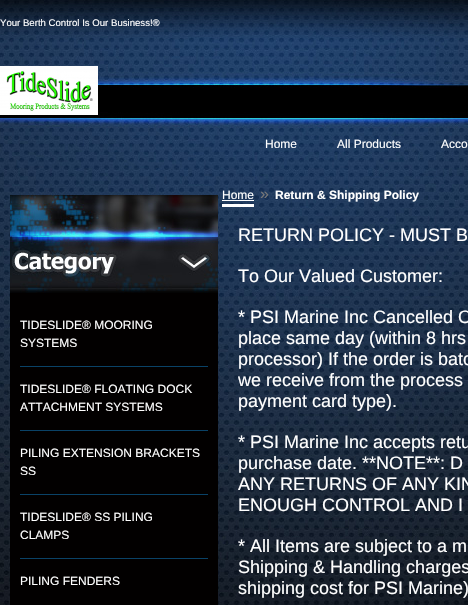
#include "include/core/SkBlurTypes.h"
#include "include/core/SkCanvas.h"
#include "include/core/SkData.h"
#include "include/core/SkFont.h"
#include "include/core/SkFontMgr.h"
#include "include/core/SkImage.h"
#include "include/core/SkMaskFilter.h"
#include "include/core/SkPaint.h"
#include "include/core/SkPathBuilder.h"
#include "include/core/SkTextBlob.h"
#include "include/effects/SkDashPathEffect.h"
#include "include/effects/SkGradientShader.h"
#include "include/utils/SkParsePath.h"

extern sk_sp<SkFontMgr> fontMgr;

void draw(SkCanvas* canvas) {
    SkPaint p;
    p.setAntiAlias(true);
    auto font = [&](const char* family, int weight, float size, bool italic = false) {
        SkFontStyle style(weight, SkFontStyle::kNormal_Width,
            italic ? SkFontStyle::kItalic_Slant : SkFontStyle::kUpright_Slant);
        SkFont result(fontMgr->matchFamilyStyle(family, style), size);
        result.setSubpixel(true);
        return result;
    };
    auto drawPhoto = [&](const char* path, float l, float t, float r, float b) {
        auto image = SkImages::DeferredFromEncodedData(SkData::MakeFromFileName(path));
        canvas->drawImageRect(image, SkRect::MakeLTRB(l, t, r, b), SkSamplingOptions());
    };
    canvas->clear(0xFFFFFFFF);
    drawPhoto("media/1.png", 0, 0, 468, 605);
    auto font1 = font("Liberation Sans", 400, 9.6f);
    p.setColor(0xFFFFFFFF);
    canvas->drawString("Your Berth Control Is Our Business!®", 0, 26, font1, p);
    drawPhoto("media/2.png", 0, 66, 98, 115);
    auto font2 = font("Liberation Sans", 400, 12);
    {
        const struct { const char* s; float x, y; } items[] = {
            {"Home", 265, 148},
            {"All Products", 337, 148},
            {"Acco", 441, 148},
        };
        for (auto [s, x, y] : items) {
            canvas->drawString(s, x, y, font2, p);
        }
    }
    drawPhoto("media/3.png", 10, 195, 218, 293);
    p.setColor(0xFF020000);
    canvas->drawRect(SkRect::MakeLTRB(10, 293, 218, 605), p);
    p.setColor(0xFF0A4267);
    canvas->drawRect(SkRect::MakeLTRB(20, 366, 208, 367), p);
    p.setColor(0xFFFFFFFF);
    canvas->drawString("TIDESLIDE® MOORING", 20, 329, font2, p);
    canvas->drawString("SYSTEMS", 20, 347, font2, p);
    p.setColor(0xFF0A4267);
    canvas->drawRect(SkRect::MakeLTRB(20, 430, 208, 431), p);
    p.setColor(0xFFFFFFFF);
    canvas->drawString("TIDESLIDE® FLOATING DOCK", 20, 393, font2, p);
    canvas->drawString("ATTACHMENT SYSTEMS", 20, 411, font2, p);
    p.setColor(0xFF0A4267);
    canvas->drawRect(SkRect::MakeLTRB(20, 494, 208, 495), p);
    p.setColor(0xFFFFFFFF);
    canvas->drawString("PILING EXTENSION BRACKETS", 20, 457, font2, p);
    canvas->drawString("SS", 20, 475, font2, p);
    p.setColor(0xFF0A4267);
    canvas->drawRect(SkRect::MakeLTRB(20, 558, 208, 559), p);
    p.setColor(0xFFFFFFFF);
    {
        const struct { const char* s; float x, y; } items[] = {
            {"TIDESLIDE® SS PILING", 20, 521},
            {"CLAMPS", 20, 539},
            {"PILING FENDERS", 20, 585},
            {"Home", 222, 199},
        };
        for (auto [s, x, y] : items) {
            canvas->drawString(s, x, y, font2, p);
        }
    }
    canvas->drawRect(SkRect::MakeLTRB(222, 204, 254, 207), p);
    canvas->drawRect(SkRect::MakeLTRB(222, 200, 254, 201), p);
    auto font3 = font("Liberation Sans", 400, 16);
    p.setColor(0xFF777777);
    canvas->drawString("»", 260, 199, font3, p);
    auto font4 = font("Liberation Sans", 700, 12);
    p.setColor(0xFFFFFFFF);
    canvas->drawString("Return & Shipping Policy", 275, 199, font4, p);
    auto font5 = font("Liberation Sans", 400, 18);
    {
        const struct { const char* s; float x, y; } items[] = {
            {"RETURN POLICY - MUST B", 238, 241},
            {"To Our Valued Customer:", 238, 282},
            {"* PSI Marine Inc Cancelled O", 238, 323},
            {"place same day (within 8 hrs", 238, 344},
            {"processor) If the order is batc", 238, 365},
            {"we receive from the process", 238, 386},
            {"payment card type).", 238, 407},
            {"* PSI Marine Inc accepts retu", 238, 448},
            {"purchase date. **NOTE**: D", 238, 469},
            {"ANY RETURNS OF ANY KIN", 238, 490},
            {"ENOUGH CONTROL AND I", 238, 511},
            {"* All Items are subject to a m", 238, 552},
            {"Shipping & Handling charges", 238, 573},
            {"shipping cost for PSI Marine)", 238, 594},
        };
        for (auto [s, x, y] : items) {
            canvas->drawString(s, x, y, font5, p);
        }
    }
}
